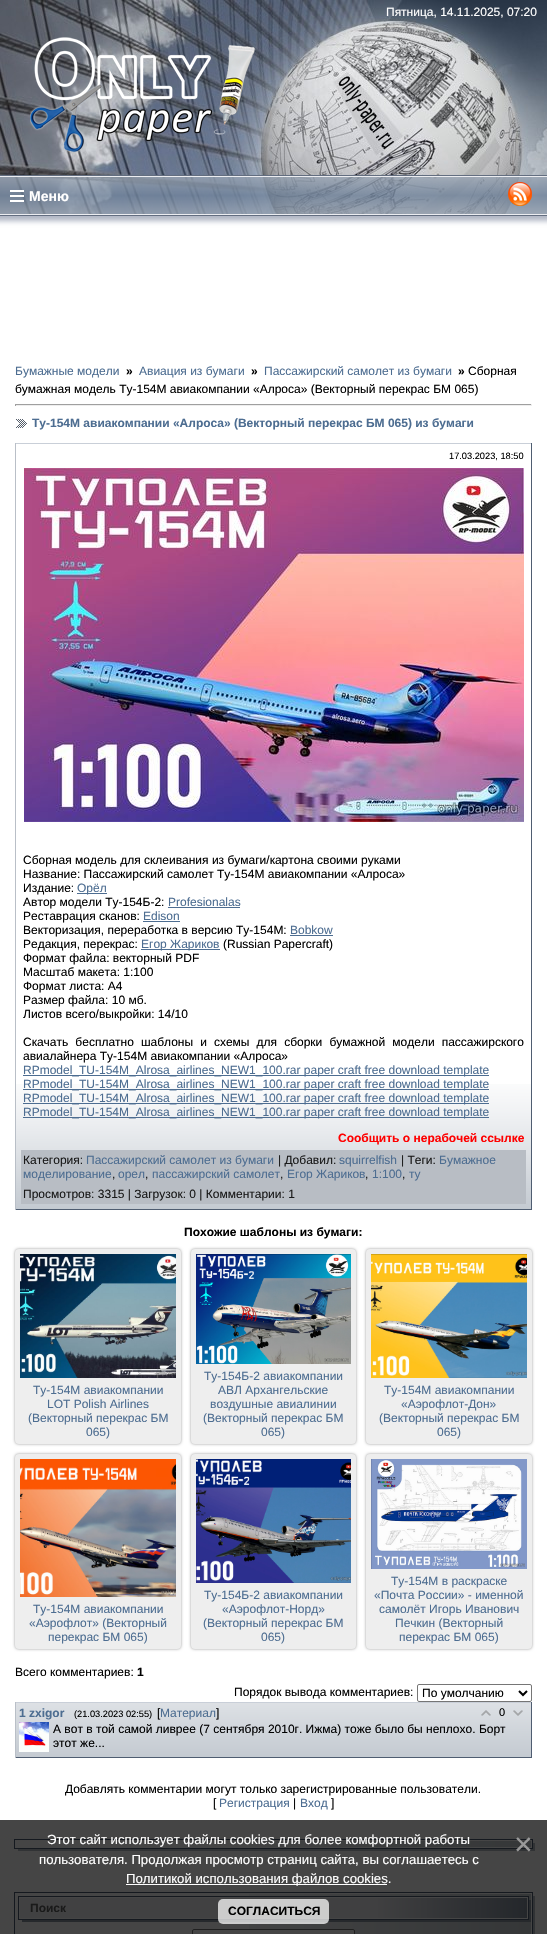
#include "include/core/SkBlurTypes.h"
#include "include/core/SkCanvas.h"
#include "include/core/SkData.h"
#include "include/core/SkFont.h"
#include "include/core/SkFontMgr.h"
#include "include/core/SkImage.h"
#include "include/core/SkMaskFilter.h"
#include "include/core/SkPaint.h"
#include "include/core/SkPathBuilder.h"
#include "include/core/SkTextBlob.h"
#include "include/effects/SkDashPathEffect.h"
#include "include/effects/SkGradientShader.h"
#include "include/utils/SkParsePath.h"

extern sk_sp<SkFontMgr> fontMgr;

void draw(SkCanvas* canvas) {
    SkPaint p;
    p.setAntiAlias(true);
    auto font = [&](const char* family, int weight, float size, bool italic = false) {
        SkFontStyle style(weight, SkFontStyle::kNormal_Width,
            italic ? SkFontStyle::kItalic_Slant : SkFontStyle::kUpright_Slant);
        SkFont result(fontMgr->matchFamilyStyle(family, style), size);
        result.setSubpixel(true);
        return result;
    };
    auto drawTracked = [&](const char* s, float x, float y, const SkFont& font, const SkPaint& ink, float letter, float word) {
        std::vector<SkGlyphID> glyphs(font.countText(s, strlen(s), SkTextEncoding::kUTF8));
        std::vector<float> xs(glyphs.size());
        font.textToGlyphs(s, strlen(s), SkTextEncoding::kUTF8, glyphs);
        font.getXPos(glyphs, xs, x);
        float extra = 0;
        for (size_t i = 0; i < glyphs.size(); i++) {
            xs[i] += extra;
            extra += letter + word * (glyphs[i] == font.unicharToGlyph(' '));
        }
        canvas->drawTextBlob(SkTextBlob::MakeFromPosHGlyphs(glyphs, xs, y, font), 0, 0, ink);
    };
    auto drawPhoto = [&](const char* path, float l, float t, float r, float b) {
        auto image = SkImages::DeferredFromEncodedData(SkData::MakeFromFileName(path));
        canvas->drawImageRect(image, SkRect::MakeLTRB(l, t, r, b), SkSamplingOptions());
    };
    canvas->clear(0xFFFFFFFF);
    p.setColor(0xFF454545);
    canvas->drawRect(SkRect::MakeLTRB(0, 1820, 547, 1934), p);
    p.setColor(0xFFB1B7C5);
    p.setMaskFilter(SkMaskFilter::MakeBlur(kNormal_SkBlurStyle, 2.5f));
    canvas->drawRect(SkRect::MakeLTRB(-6, -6, 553, 221), p);
    p.setMaskFilter(nullptr);
    drawPhoto("media/1.png", 0, 0, 547, 214);
    auto font1 = font("Liberation Sans", 400, 12);
    p.setColor(0xFFFFFFFF);
    canvas->drawString("Пятница, 14.11.2025, 07:20", 386, 16, font1, p);
    drawPhoto("media/2.png", 30, 37, 255, 153);
    p.setColor(0xFFECEDF1);
    canvas->drawRect(SkRect::MakeLTRB(0, 176, 547, 177), p);
    canvas->drawRect(SkRect::MakeLTRB(0, 214, 547, 215), p);
    drawPhoto("media/3.png", 508, 182, 532, 206);
    p.setStyle(SkPaint::kStroke_Style);
    p.setStrokeWidth(1);
    p.setColor(0xFF636E80);
    canvas->drawRect(SkRect::MakeLTRB(-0.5f, 175.5f, 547.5f, 215.5f), p);
    p.setStyle(SkPaint::kFill_Style);
    {
        const struct { float l, t, r, b; SkColor color; } items[] = {
            {10, 200, 24, 202, 0xFFFFFFFF},
            {10, 190, 24, 192, 0xFFFFFFFF},
            {10, 195, 24, 197, 0xFFFFFFFF},
        };
        for (auto [l, t, r, b, color] : items) {
            p.setColor(color);
            canvas->drawRect(SkRect::MakeLTRB(l, t, r, b), p);
        }
    }
    auto font2 = font("Liberation Sans", 700, 14);
    canvas->drawString("Меню", 29, 201, font2, p);
    p.setColor(0xFF4D6D91);
    canvas->drawString("Бумажные модели", 15, 375, font1, p);
    auto font3 = font("Liberation Sans", 700, 12);
    p.setColor(0xFF000000);
    canvas->drawString("»", 126, 375, font3, p);
    p.setColor(0xFF4D6D91);
    canvas->drawString("Авиация из бумаги", 139, 375, font1, p);
    p.setColor(0xFF000000);
    canvas->drawString("»", 251, 375, font3, p);
    p.setColor(0xFF4D6D91);
    canvas->drawString("Пассажирский самолет из бумаги", 264, 375, font1, p);
    p.setColor(0xFF000000);
    canvas->drawString("»", 458, 375, font3, p);
    canvas->drawString("Сборная", 468, 375, font1, p);
    canvas->drawString("бумажная модель Ту-154М авиакомпании «Алроса» (Векторный перекрас БМ 065)", 15, 393, font1, p);
    {
        const struct { float l, t, r, b; SkColor color; } items[] = {
            {15, 404, 532, 405, 0xFF9F9F9F},
            {531, 404, 532, 406, 0xFFEEEEEE},
            {15, 405, 532, 406, 0xFFEEEEEE},
            {15, 404, 16, 406, 0xFF9F9F9F},
        };
        for (auto [l, t, r, b, color] : items) {
            p.setColor(color);
            canvas->drawRect(SkRect::MakeLTRB(l, t, r, b), p);
        }
    }
    drawPhoto("media/4.png", 16, 419, 27, 428);
    p.setColor(0xFF4D6D91);
    canvas->drawString("Ту-154М авиакомпании «Алроса» (Векторный перекрас БМ 065) из бумаги", 32, 427, font3, p);
    drawPhoto("media/5.png", 16, 1084, 531, 1209);
    {
        const struct { float l, t, r, b; SkColor color; } items[] = {
            {15, 443, 532, 444, 0xFFC9CFD8},
            {531, 443, 532, 1210, 0xFF4F5D71},
            {15, 1209, 532, 1210, 0xFF4F5D71},
            {15, 443, 16, 1210, 0xFFB9BFC7},
        };
        for (auto [l, t, r, b, color] : items) {
            p.setColor(color);
            canvas->drawRect(SkRect::MakeLTRB(l, t, r, b), p);
        }
    }
    auto font4 = font("Liberation Sans", 400, 9.25f);
    p.setColor(0xFF000000);
    canvas->drawString("17.03.2023, 18:50", 449, 459, font4, p);
    drawPhoto("media/6.png", 24, 468, 524, 822);
    {
        const struct { const char* s; float x, y; } items[] = {
            {"Сборная модель для склеивания из бумаги/картона своими руками", 23, 864},
            {"Название: Пассажирский самолет Ту-154М авиакомпании «Алроса»", 23, 878},
            {"Издание:", 23, 892},
        };
        for (auto [s, x, y] : items) {
            canvas->drawString(s, x, y, font1, p);
        }
    }
    p.setColor(0xFF4D6D91);
    canvas->drawRect(SkRect::MakeLTRB(77, 893, 107, 894), p);
    canvas->drawString("Орёл", 77, 892, font1, p);
    p.setColor(0xFF000000);
    canvas->drawString("Автор модели Ту-154Б-2:", 23, 906, font1, p);
    p.setColor(0xFF4D6D91);
    canvas->drawString("Profesionalas", 168, 906, font1, p);
    canvas->drawRect(SkRect::MakeLTRB(168, 907, 240, 908), p);
    p.setColor(0xFF000000);
    canvas->drawString("Реставрация сканов:", 23, 920, font1, p);
    p.setColor(0xFF4D6D91);
    canvas->drawString("Edison", 143, 920, font1, p);
    canvas->drawRect(SkRect::MakeLTRB(143, 921, 180, 922), p);
    p.setColor(0xFF000000);
    canvas->drawString("Векторизация, переработка в версию Ту-154М:", 23, 934, font1, p);
    p.setColor(0xFF4D6D91);
    canvas->drawString("Bobkow", 290, 934, font1, p);
    canvas->drawRect(SkRect::MakeLTRB(290, 935, 333, 936), p);
    p.setColor(0xFF000000);
    canvas->drawString("Редакция, перекрас:", 23, 948, font1, p);
    p.setColor(0xFF4D6D91);
    canvas->drawRect(SkRect::MakeLTRB(141, 949, 220, 950), p);
    canvas->drawString("Егор Жариков", 141, 948, font1, p);
    p.setColor(0xFF000000);
    {
        const struct { const char* s; float x, y; } items[] = {
            {"(Russian Papercraft)", 223, 948},
            {"Формат файла: векторный PDF", 23, 962},
            {"Масштаб макета: 1:100", 23, 976},
            {"Формат листа: А4", 23, 990},
            {"Размер файла: 10 мб.", 23, 1004},
            {"Листов всего/выкройки: 14/10", 23, 1018},
        };
        for (auto [s, x, y] : items) {
            canvas->drawString(s, x, y, font1, p);
        }
    }
    drawTracked("Скачать бесплатно шаблоны и схемы для сборки бумажной модели пассажирского", 23, 1046, font1, p, 0, 3.75f);
    canvas->drawString("авиалайнера Ту-154М авиакомпании «Алроса»", 23, 1060, font1, p);
    p.setColor(0xFF4D6D91);
    canvas->drawRect(SkRect::MakeLTRB(23, 1075, 489, 1076), p);
    canvas->drawString("RPmodel_TU-154M_Alrosa_airlines_NEW1_100.rar paper craft free download template", 23, 1074, font1, p);
    canvas->drawRect(SkRect::MakeLTRB(23, 1089, 489, 1090), p);
    canvas->drawString("RPmodel_TU-154M_Alrosa_airlines_NEW1_100.rar paper craft free download template", 23, 1088, font1, p);
    canvas->drawRect(SkRect::MakeLTRB(23, 1103, 489, 1104), p);
    canvas->drawString("RPmodel_TU-154M_Alrosa_airlines_NEW1_100.rar paper craft free download template", 23, 1102, font1, p);
    canvas->drawRect(SkRect::MakeLTRB(23, 1117, 489, 1118), p);
    canvas->drawString("RPmodel_TU-154M_Alrosa_airlines_NEW1_100.rar paper craft free download template", 23, 1116, font1, p);
    p.setColor(0xFFFF0000);
    canvas->drawString("Сообщить о нерабочей ссылке", 338, 1142, font3, p);
    p.setColor(0xFFB8BDC4);
    canvas->drawRect(SkRect::MakeLTRB(21, 1150, 526, 1204), p);
    p.setColor(0xFF1A1A1A);
    canvas->drawString("Категория:", 23, 1164, font1, p);
    p.setColor(0xFF4D6D91);
    canvas->drawString("Пассажирский самолет из бумаги", 86, 1164, font1, p);
    p.setColor(0xFF1A1A1A);
    canvas->drawString("| Добавил:", 278, 1164, font1, p);
    p.setColor(0xFF4D6D91);
    canvas->drawString("squirrelfish", 339, 1164, font1, p);
    p.setColor(0xFF1A1A1A);
    canvas->drawString("| Теги:", 401, 1164, font1, p);
    p.setColor(0xFF4D6D91);
    canvas->drawString("Бумажное", 439, 1164, font1, p);
    canvas->drawString("моделирование", 23, 1178, font1, p);
    p.setColor(0xFF1A1A1A);
    canvas->drawString(",", 112, 1178, font1, p);
    p.setColor(0xFF4D6D91);
    canvas->drawString("орел", 118, 1178, font1, p);
    p.setColor(0xFF1A1A1A);
    canvas->drawString(",", 145, 1178, font1, p);
    p.setColor(0xFF4D6D91);
    canvas->drawString("пассажирский самолет", 152, 1178, font1, p);
    p.setColor(0xFF1A1A1A);
    canvas->drawString(",", 280, 1178, font1, p);
    p.setColor(0xFF4D6D91);
    canvas->drawString("Егор Жариков", 287, 1178, font1, p);
    p.setColor(0xFF1A1A1A);
    canvas->drawString(",", 365, 1178, font1, p);
    p.setColor(0xFF4D6D91);
    canvas->drawString("1:100", 372, 1178, font1, p);
    p.setColor(0xFF1A1A1A);
    canvas->drawString(",", 402, 1178, font1, p);
    p.setColor(0xFF4D6D91);
    canvas->drawString("ту", 409, 1178, font1, p);
    p.setColor(0xFF1A1A1A);
    canvas->drawString("Просмотров: 3315 | Загрузок: 0 | Комментарии: 1", 23, 1198, font1, p);
    p.setColor(0xFF000000);
    canvas->drawString("Похожие шаблоны из бумаги:", 184, 1236, font3, p);
    p.setColor(0xFF999999);
    p.setMaskFilter(SkMaskFilter::MakeBlur(kNormal_SkBlurStyle, 1.5f));
    canvas->drawRoundRect(SkRect::MakeLTRB(15, 1249, 181, 1444), 4, 4, p);
    p.setMaskFilter(nullptr);
    p.setColor(0xFFEEEEEE);
    canvas->drawRoundRect(SkRect::MakeLTRB(15, 1249, 181, 1444), 4, 4, p);
    drawPhoto("media/7.png", 20, 1254, 176, 1378);
    p.setColor(0xFF4D6D91);
    {
        const struct { const char* s; float x, y; } items[] = {
            {"Ту-154М авиакомпании", 33, 1394},
            {"LOT Polish Airlines", 47, 1408},
            {"(Векторный перекрас БМ", 28, 1422},
            {"065)", 86, 1436},
        };
        for (auto [s, x, y] : items) {
            canvas->drawString(s, x, y, font1, p);
        }
    }
    p.setColor(0xFF999999);
    p.setMaskFilter(SkMaskFilter::MakeBlur(kNormal_SkBlurStyle, 1.5f));
    canvas->drawRoundRect(SkRect::MakeLTRB(191, 1249, 356, 1444), 4, 4, p);
    p.setMaskFilter(nullptr);
    p.setColor(0xFFEEEEEE);
    canvas->drawRoundRect(SkRect::MakeLTRB(191, 1249, 356, 1444), 4, 4, p);
    drawPhoto("media/8.png", 196, 1254, 351, 1364);
    p.setColor(0xFF4D6D91);
    {
        const struct { const char* s; float x, y; } items[] = {
            {"Ту-154Б-2 авиакомпании", 204, 1380},
            {"АВЛ Архангельские", 218, 1394},
            {"воздушные авиалинии", 210, 1408},
            {"(Векторный перекрас БМ", 203, 1422},
            {"065)", 261, 1436},
        };
        for (auto [s, x, y] : items) {
            canvas->drawString(s, x, y, font1, p);
        }
    }
    p.setColor(0xFF999999);
    p.setMaskFilter(SkMaskFilter::MakeBlur(kNormal_SkBlurStyle, 1.5f));
    canvas->drawRoundRect(SkRect::MakeLTRB(366, 1249, 532, 1444), 4, 4, p);
    p.setMaskFilter(nullptr);
    p.setColor(0xFFEEEEEE);
    canvas->drawRoundRect(SkRect::MakeLTRB(366, 1249, 532, 1444), 4, 4, p);
    drawPhoto("media/9.png", 371, 1254, 527, 1378);
    p.setColor(0xFF4D6D91);
    {
        const struct { const char* s; float x, y; } items[] = {
            {"Ту-154М авиакомпании", 384, 1394},
            {"«Аэрофлот-Дон»", 401, 1408},
            {"(Векторный перекрас БМ", 379, 1422},
            {"065)", 437, 1436},
        };
        for (auto [s, x, y] : items) {
            canvas->drawString(s, x, y, font1, p);
        }
    }
    p.setColor(0xFF999999);
    p.setMaskFilter(SkMaskFilter::MakeBlur(kNormal_SkBlurStyle, 1.5f));
    canvas->drawRoundRect(SkRect::MakeLTRB(15, 1454, 181, 1649), 4, 4, p);
    p.setMaskFilter(nullptr);
    p.setColor(0xFFEEEEEE);
    canvas->drawRoundRect(SkRect::MakeLTRB(15, 1454, 181, 1649), 4, 4, p);
    drawPhoto("media/10.png", 20, 1459, 176, 1597);
    p.setColor(0xFF4D6D91);
    {
        const struct { const char* s; float x, y; } items[] = {
            {"Ту-154М авиакомпании", 33, 1613},
            {"«Аэрофлот» (Векторный", 29, 1627},
            {"перекрас БМ 065)", 48, 1641},
        };
        for (auto [s, x, y] : items) {
            canvas->drawString(s, x, y, font1, p);
        }
    }
    p.setColor(0xFF999999);
    p.setMaskFilter(SkMaskFilter::MakeBlur(kNormal_SkBlurStyle, 1.5f));
    canvas->drawRoundRect(SkRect::MakeLTRB(191, 1454, 356, 1649), 4, 4, p);
    p.setMaskFilter(nullptr);
    p.setColor(0xFFEEEEEE);
    canvas->drawRoundRect(SkRect::MakeLTRB(191, 1454, 356, 1649), 4, 4, p);
    drawPhoto("media/11.png", 196, 1459, 351, 1583);
    p.setColor(0xFF4D6D91);
    {
        const struct { const char* s; float x, y; } items[] = {
            {"Ту-154Б-2 авиакомпании", 204, 1599},
            {"«Аэрофлот-Норд»", 222, 1613},
            {"(Векторный перекрас БМ", 203, 1627},
            {"065)", 261, 1641},
        };
        for (auto [s, x, y] : items) {
            canvas->drawString(s, x, y, font1, p);
        }
    }
    p.setColor(0xFF999999);
    p.setMaskFilter(SkMaskFilter::MakeBlur(kNormal_SkBlurStyle, 1.5f));
    canvas->drawRoundRect(SkRect::MakeLTRB(366, 1454, 532, 1649), 4, 4, p);
    p.setMaskFilter(nullptr);
    p.setColor(0xFFEEEEEE);
    canvas->drawRoundRect(SkRect::MakeLTRB(366, 1454, 532, 1649), 4, 4, p);
    drawPhoto("media/12.png", 371, 1459, 527, 1569);
    p.setColor(0xFF4D6D91);
    {
        const struct { const char* s; float x, y; } items[] = {
            {"Ту-154М в раскраске", 391, 1585},
            {"«Почта России» - именной", 374, 1599},
            {"самолёт Игорь Иванович", 379, 1613},
            {"Печкин (Векторный", 395, 1627},
            {"перекрас БМ 065)", 399, 1641},
        };
        for (auto [s, x, y] : items) {
            canvas->drawString(s, x, y, font1, p);
        }
    }
    p.setColor(0xFF000000);
    canvas->drawString("Всего комментариев:", 15, 1676, font1, p);
    canvas->drawString("1", 137, 1676, font3, p);
    canvas->drawString("Порядок вывода комментариев:", 234, 1696, font1, p);
    p.setStyle(SkPaint::kStroke_Style);
    p.setColor(0xFF767676);
    canvas->drawRoundRect(SkRect::MakeLTRB(417.5f, 1684.5f, 531.5f, 1701.5f), 1.5f, 1.5f, p);
    p.setStrokeWidth(2);
    p.setColor(0xFF000000);
    canvas->drawPath(SkPathBuilder().moveTo(519, 1691).lineTo(523, 1695).lineTo(527, 1691).detach(), p);
    p.setStyle(SkPaint::kFill_Style);
    canvas->drawString("По умолчанию", 422, 1697, font1, p);
    drawPhoto("media/13.png", 16, 1703, 531, 1757);
    {
        const struct { float l, t, r, b; SkColor color; } items[] = {
            {15, 1702, 532, 1703, 0xFFC9CFD8},
            {531, 1702, 532, 1758, 0xFF4F5D71},
            {15, 1757, 532, 1758, 0xFF4F5D71},
            {15, 1702, 16, 1758, 0xFFB9BFC7},
        };
        for (auto [l, t, r, b, color] : items) {
            p.setColor(color);
            canvas->drawRect(SkRect::MakeLTRB(l, t, r, b), p);
        }
    }
    p.setColor(0xFF4D6D91);
    canvas->drawString("1 zxigor", 19, 1717, font3, p);
    p.setColor(0xFF000000);
    canvas->drawString("(21.03.2023 02:55)", 74, 1717, font4, p);
    canvas->drawString("[", 157, 1717, font1, p);
    p.setColor(0xFF4D6D91);
    canvas->drawString("Материал", 160, 1717, font1, p);
    p.setColor(0xFF000000);
    canvas->drawString("]", 216, 1717, font1, p);
    drawPhoto("media/14.png", 481, 1710, 491, 1716);
    auto font5 = font("Liberation Sans", 400, 11);
    canvas->drawString("0", 499, 1716, font5, p);
    drawPhoto("media/15.png", 513, 1710, 523, 1716);
    drawPhoto("media/16.png", 19, 1722, 49, 1752);
    {
        const struct { const char* s; float x, y; } items[] = {
            {"А вот в той самой ливрее (7 сентября 2010г. Ижма) тоже было бы неплохо. Борт", 53, 1733},
            {"этот же...", 53, 1747},
            {"Добавлять комментарии могут только зарегистрированные пользователи.", 65, 1793},
            {"[", 213, 1807},
        };
        for (auto [s, x, y] : items) {
            canvas->drawString(s, x, y, font1, p);
        }
    }
    p.setColor(0xFF4D6D91);
    canvas->drawString("Регистрация", 219, 1807, font1, p);
    p.setColor(0xFF000000);
    canvas->drawString("|", 293, 1807, font1, p);
    p.setColor(0xFF4D6D91);
    canvas->drawString("Вход", 300, 1807, font1, p);
    p.setColor(0xFF000000);
    canvas->drawString("]", 331, 1807, font1, p);
    p.setColor(0xFF313335);
    canvas->drawPath(SkPathBuilder().moveTo(18, 1848).lineTo(18, 1851).lineTo(535, 1851).lineTo(535, 1843).lineTo(532, 1843).lineTo(532, 1848).close().detach(), p);
    {
        const SkColor colors[] = {0xFF454545, 0xFF353738};
        const float stops[] = {0.35f, 1};
        const SkPoint ends[] = {{16, 1844}, {531, 1844}};
        p.setShader(SkGradientShader::MakeLinear(ends, colors, stops, 2, SkTileMode::kClamp));
        p.setAlpha(255);
    }
    canvas->drawRect(SkRect::MakeLTRB(249, 1841, 531, 1847), p);
    p.setStyle(SkPaint::kStroke_Style);
    p.setStrokeWidth(1);
    p.setShader(nullptr);
    p.setColor(0xFF15191F);
    canvas->drawRect(SkRect::MakeLTRB(14.5f, 1839.5f, 532.5f, 1848.5f), p);
    p.setStyle(SkPaint::kFill_Style);
    p.setColor(0xFF313335);
    canvas->drawPath(SkPathBuilder().moveTo(18, 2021).lineTo(18, 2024).lineTo(535, 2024).lineTo(535, 1896).lineTo(532, 1896).lineTo(532, 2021).close().detach(), p);
    {
        const SkColor colors[] = {0xFF454545, 0xFF353738};
        const float stops[] = {0.35f, 1};
        const SkPoint ends[] = {{16, 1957}, {531, 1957}};
        p.setShader(SkGradientShader::MakeLinear(ends, colors, stops, 2, SkTileMode::kClamp));
        p.setAlpha(255);
    }
    canvas->drawRect(SkRect::MakeLTRB(249, 1894, 531, 1934), p);
    p.setShader(nullptr);
    p.setColor(0xFF26292C);
    canvas->drawPath(SkPathBuilder().moveTo(22, 1919).lineTo(22, 1922).lineTo(531, 1922).lineTo(531, 1900).lineTo(528, 1900).lineTo(528, 1919).close().detach(), p);
    {
        const SkColor colors[] = {0xFF414142, 0xFF414142, 0xFF404041, 0xFF24272B};
        const float stops[] = {0, 0.5f, 0.7f, 1};
        const SkPoint ends[] = {{20, 1908}, {527, 1908}};
        p.setShader(SkGradientShader::MakeLinear(ends, colors, stops, 4, SkTileMode::kClamp));
        p.setAlpha(255);
    }
    canvas->drawRect(SkRect::MakeLTRB(20, 1898, 527, 1918), p);
    p.setStyle(SkPaint::kStroke_Style);
    p.setShader(nullptr);
    p.setColor(0xFF454545);
    canvas->drawRect(SkRect::MakeLTRB(19.5f, 1897.5f, 527.5f, 1918.5f), p);
    p.setColor(0xFF15191F);
    canvas->drawRect(SkRect::MakeLTRB(18.5f, 1896.5f, 528.5f, 1919.5f), p);
    p.setStyle(SkPaint::kFill_Style);
    p.setColor(0xFF454545);
    canvas->drawRoundRect(SkRect::MakeLTRB(192.5f, 1929.5f, 354.5f, 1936.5f), 1.5f, 1.5f, p);
    p.setStyle(SkPaint::kStroke_Style);
    p.setColor(0xFF202020);
    canvas->drawRoundRect(SkRect::MakeLTRB(192.5f, 1929.5f, 354.5f, 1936.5f), 1.5f, 1.5f, p);
    p.setColor(0xFF15191F);
    canvas->drawRect(SkRect::MakeLTRB(14.5f, 1892.5f, 532.5f, 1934.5f), p);
    p.setStyle(SkPaint::kFill_Style);
    p.setColor(0xFF1A1A1A);
    canvas->drawString("Поиск", 30, 1912, font3, p);
    auto font6 = font("Liberation Sans", 400, 13.2f);
    p.setColor(0xFFFFFFFF);
    canvas->drawString("Этот сайт использует файлы cookies для более комфортной работы", 47, 1844, font6, p);
    canvas->drawString("пользователя. Продолжая просмотр страниц сайта, вы соглашаетесь с", 39, 1864, font6, p);
    canvas->drawRect(SkRect::MakeLTRB(126, 1884, 387, 1885), p);
    canvas->drawString("Политикой использования файлов cookies.", 126, 1883, font6, p);
    auto font7 = font("Liberation Sans", 400, 32);
    p.setColor(0xFF999999);
    canvas->drawString("×", 514, 1855, font7, p);
    p.setColor(0xBAFFFFFF);
    canvas->drawRoundRect(SkRect::MakeLTRB(218, 1899, 329, 1924), 5, 5, p);
    p.setColor(0xFF000000);
    canvas->drawString("СОГЛАСИТЬСЯ", 228, 1915, font3, p);
}
